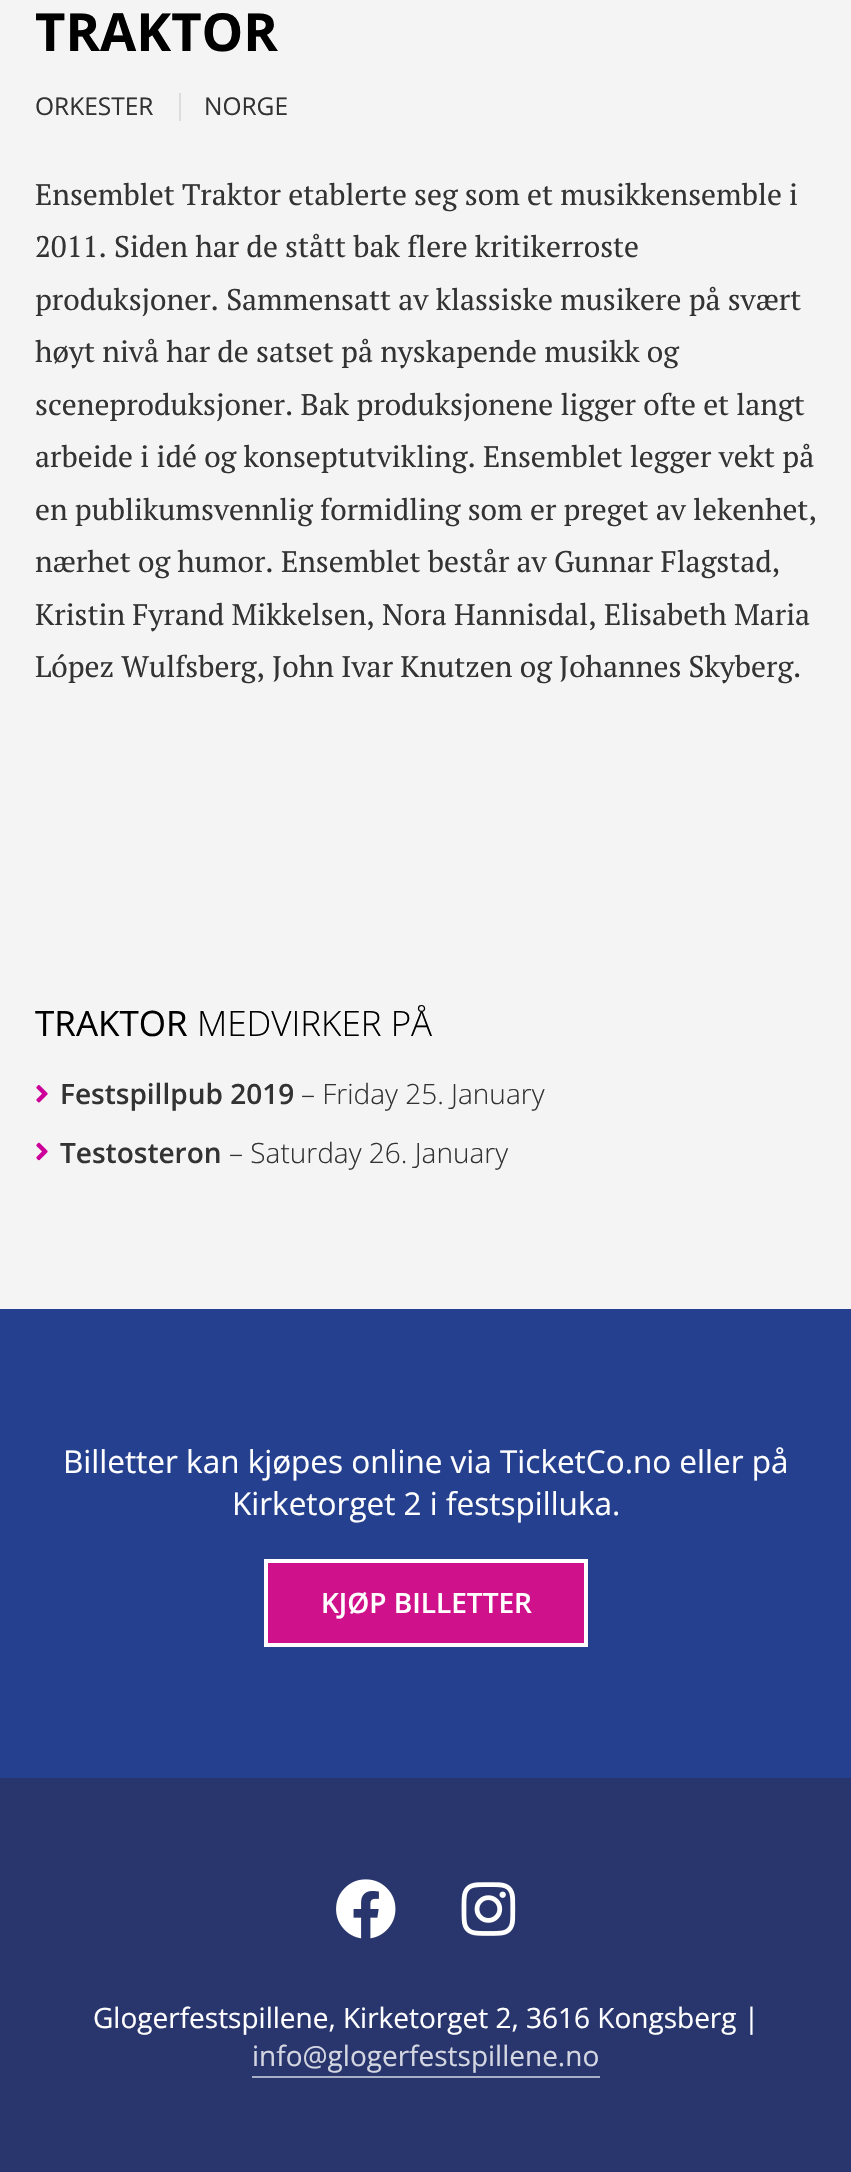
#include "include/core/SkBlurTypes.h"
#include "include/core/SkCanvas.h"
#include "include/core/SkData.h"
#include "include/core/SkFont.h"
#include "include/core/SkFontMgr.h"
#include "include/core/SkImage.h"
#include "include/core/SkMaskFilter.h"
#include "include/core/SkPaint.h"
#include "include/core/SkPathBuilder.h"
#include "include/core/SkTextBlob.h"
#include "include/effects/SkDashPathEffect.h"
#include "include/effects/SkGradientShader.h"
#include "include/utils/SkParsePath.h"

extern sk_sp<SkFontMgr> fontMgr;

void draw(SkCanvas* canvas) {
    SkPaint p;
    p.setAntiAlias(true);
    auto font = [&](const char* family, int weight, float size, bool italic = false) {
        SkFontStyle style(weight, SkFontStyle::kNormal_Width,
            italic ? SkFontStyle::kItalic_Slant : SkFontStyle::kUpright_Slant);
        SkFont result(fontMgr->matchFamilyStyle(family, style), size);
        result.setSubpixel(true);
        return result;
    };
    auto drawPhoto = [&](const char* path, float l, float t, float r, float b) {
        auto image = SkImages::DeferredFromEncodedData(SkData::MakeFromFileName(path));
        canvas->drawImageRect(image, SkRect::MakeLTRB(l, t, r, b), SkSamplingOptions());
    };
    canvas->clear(0xFFF4F4F4);
    auto font1 = font("Open Sans", 700, 52.5f);
    p.setColor(0xFF000000);
    canvas->drawString("TRAKTOR", 35, 51, font1, p);
    auto font2 = font("Open Sans", 400, 24.5f);
    p.setColor(0xFF333333);
    canvas->drawString("ORKESTER", 35, 115, font2, p);
    p.setColor(0xFFDDDDDD);
    canvas->drawRect(SkRect::MakeLTRB(179, 93, 181, 121), p);
    p.setColor(0xFF333333);
    canvas->drawString("NORGE", 204, 115, font2, p);
    auto font3 = font("PT Serif", 400, 29.75f);
    {
        const struct { const char* s; float x, y; } items[] = {
            {"Ensemblet Traktor etablerte seg som et musikkensemble i", 35, 205},
            {"2011. Siden har de stått bak flere kritikerroste", 35, 257},
            {"produksjoner. Sammensatt av klassiske musikere på svært", 35, 310},
            {"høyt nivå har de satset på nyskapende musikk og", 35, 362},
            {"sceneproduksjoner. Bak produksjonene ligger ofte et langt", 35, 415},
            {"arbeide i idé og konseptutvikling. Ensemblet legger vekt på", 35, 467},
            {"en publikumsvennlig formidling som er preget av lekenhet,", 35, 520},
            {"nærhet og humor. Ensemblet består av Gunnar Flagstad,", 35, 572},
            {"Kristin Fyrand Mikkelsen, Nora Hannisdal, Elisabeth Maria", 35, 625},
            {"López Wulfsberg, John Ivar Knutzen og Johannes Skyberg.", 35, 677},
        };
        for (auto [s, x, y] : items) {
            canvas->drawString(s, x, y, font3, p);
        }
    }
    auto font4 = font("Open Sans", 400, 35);
    p.setColor(0xFF000000);
    canvas->drawString("TRAKTOR", 35, 1036, font4, p);
    auto font5 = font("Open Sans", 300, 35);
    canvas->drawString("MEDVIRKER PÅ", 197, 1036, font5, p);
    drawPhoto("media/1.png", 36, 1085, 48, 1103);
    auto font6 = font("Open Sans", 600, 28);
    p.setColor(0xFF333333);
    canvas->drawString("Festspillpub 2019", 60, 1104, font6, p);
    auto font7 = font("Open Sans", 300, 28);
    canvas->drawString("– Friday 25. January", 301, 1104, font7, p);
    drawPhoto("media/2.png", 36, 1142, 48, 1161);
    canvas->drawString("Testosteron", 60, 1163, font6, p);
    canvas->drawString("– Saturday 26. January", 229, 1163, font7, p);
    p.setColor(0xFF25408F);
    canvas->drawRect(SkRect::MakeLTRB(0, 1309, 851, 1778), p);
    auto font8 = font("Open Sans", 400, 31.5f);
    p.setColor(0xFFFFFFFF);
    canvas->drawString("Billetter kan kjøpes online via TicketCo.no eller på", 63, 1473, font8, p);
    canvas->drawString("Kirketorget 2 i festspilluka.", 232, 1515, font8, p);
    p.setColor(0xFFCF128C);
    canvas->drawRect(SkRect::MakeLTRB(266, 1561, 586, 1645), p);
    p.setStyle(SkPaint::kStroke_Style);
    p.setStrokeWidth(4);
    p.setColor(0xFFFFFFFF);
    canvas->drawRect(SkRect::MakeLTRB(266, 1561, 586, 1645), p);
    p.setStyle(SkPaint::kFill_Style);
    canvas->drawString("KJØP BILLETTER", 321, 1613, font6, p);
    p.setColor(0xFF29366D);
    canvas->drawRect(SkRect::MakeLTRB(0, 1778, 851, 2172), p);
    drawPhoto("media/3.png", 336, 1879, 396, 1939);
    drawPhoto("media/4.png", 461, 1882, 516, 1936);
    auto font9 = font("Open Sans", 400, 28);
    p.setColor(0xFFFFFFFF);
    canvas->drawString("Glogerfestspillene, Kirketorget 2, 3616 Kongsberg |", 93, 2028, font9, p);
    p.setColor(0xFFD4D7E2);
    canvas->drawString("info@glogerfestspillene.no", 252, 2066, font9, p);
    p.setColor(0xFFA9AFC5);
    canvas->drawRect(SkRect::MakeLTRB(252, 2076, 600, 2078), p);
}
